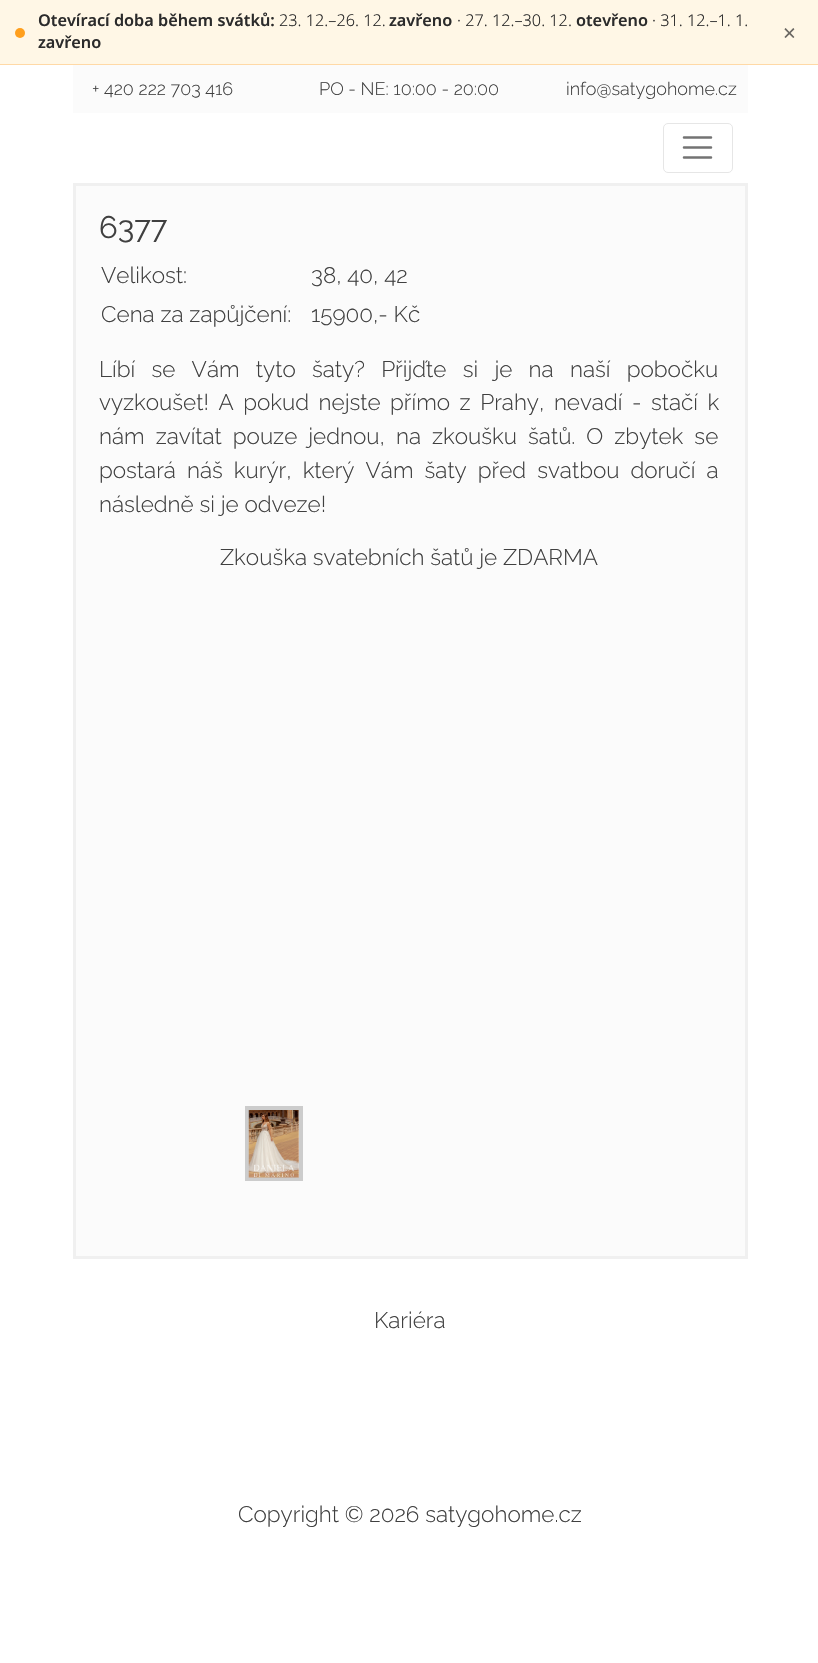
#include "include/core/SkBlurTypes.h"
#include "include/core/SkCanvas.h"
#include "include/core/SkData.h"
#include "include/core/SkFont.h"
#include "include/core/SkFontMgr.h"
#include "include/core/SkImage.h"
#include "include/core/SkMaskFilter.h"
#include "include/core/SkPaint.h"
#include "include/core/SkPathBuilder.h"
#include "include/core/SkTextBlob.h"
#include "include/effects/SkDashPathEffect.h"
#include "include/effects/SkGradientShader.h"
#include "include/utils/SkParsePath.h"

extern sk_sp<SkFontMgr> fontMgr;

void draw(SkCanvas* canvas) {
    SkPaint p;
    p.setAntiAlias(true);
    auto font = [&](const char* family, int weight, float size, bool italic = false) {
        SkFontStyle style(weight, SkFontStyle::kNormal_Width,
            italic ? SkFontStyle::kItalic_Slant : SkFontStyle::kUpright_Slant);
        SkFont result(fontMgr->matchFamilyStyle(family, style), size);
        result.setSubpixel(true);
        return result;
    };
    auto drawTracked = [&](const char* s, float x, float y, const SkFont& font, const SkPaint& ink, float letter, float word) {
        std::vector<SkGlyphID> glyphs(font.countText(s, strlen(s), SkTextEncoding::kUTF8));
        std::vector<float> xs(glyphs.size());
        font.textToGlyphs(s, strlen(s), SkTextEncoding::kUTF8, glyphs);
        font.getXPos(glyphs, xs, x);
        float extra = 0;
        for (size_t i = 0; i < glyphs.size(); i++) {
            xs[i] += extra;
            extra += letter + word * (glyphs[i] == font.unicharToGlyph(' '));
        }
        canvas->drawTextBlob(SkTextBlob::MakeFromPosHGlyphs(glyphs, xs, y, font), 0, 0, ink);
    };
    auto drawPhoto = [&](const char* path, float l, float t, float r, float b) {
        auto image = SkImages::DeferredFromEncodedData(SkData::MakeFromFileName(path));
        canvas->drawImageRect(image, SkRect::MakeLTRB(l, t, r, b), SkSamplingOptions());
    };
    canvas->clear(0xFFFFFFFF);
    p.setColor(0xFFFFF7E6);
    canvas->drawRect(SkRect::MakeLTRB(0, 0, 818, 64), p);
    p.setColor(0xFFFFD9A6);
    canvas->drawRect(SkRect::MakeLTRB(0, 64, 818, 65), p);
    p.setColor(0xFFFF9F1C);
    canvas->drawCircle(20, 33, 5, p);
    auto font1 = font("Noto Sans", 600, 16.25f);
    p.setColor(0xFF2B2B2B);
    canvas->drawString("Otevírací doba během svátků:", 38, 26, font1, p);
    auto font2 = font("Noto Sans", 300, 16.25f);
    canvas->drawString("23. 12.–26. 12.", 279, 26, font2, p);
    canvas->drawString("zavřeno", 389, 26, font1, p);
    canvas->drawString("· 27. 12.–30. 12.", 457, 26, font2, p);
    canvas->drawString("otevřeno", 576, 26, font1, p);
    canvas->drawString("· 31. 12.–1. 1.", 652, 26, font2, p);
    canvas->drawString("zavřeno", 38, 48, font1, p);
    auto font3 = font("Noto Sans", 400, 22.5f);
    p.setColor(0xFF6B6863);
    canvas->drawString("×", 783, 41, font3, p);
    p.setColor(0xFFFBFBFB);
    canvas->drawRect(SkRect::MakeLTRB(73, 65, 748, 113), p);
    auto font4 = font("Raleway", 300, 18);
    p.setColor(0xFF404040);
    {
        const struct { const char* s; float x, y; } items[] = {
            {"+ 420 222 703 416", 92, 95},
            {"PO - NE: 10:00 - 20:00", 319, 95},
            {"info@satygohome.cz", 566, 95},
        };
        for (auto [s, x, y] : items) {
            canvas->drawString(s, x, y, font4, p);
        }
    }
    p.setStyle(SkPaint::kStroke_Style);
    p.setStrokeWidth(1);
    p.setColor(0xFFE6E6E6);
    canvas->drawRoundRect(SkRect::MakeLTRB(663.5f, 123.5f, 732.5f, 172.5f), 4.5f, 4.5f, p);
    p.setStrokeWidth(2.5f);
    p.setStrokeCap(SkPaint::kRound_Cap);
    p.setColor(0xFF737373);
    canvas->drawPath(SkPathBuilder().moveTo(684, 137.5f).lineTo(711, 137.5f).moveTo(684, 147.5f).lineTo(711, 147.5f).moveTo(684, 157.5f).lineTo(711, 157.5f).detach(), p);
    p.setStyle(SkPaint::kFill_Style);
    p.setColor(0xFFFBFBFB);
    canvas->drawRect(SkRect::MakeLTRB(74.5f, 184.5f, 746.5f, 1257.5f), p);
    p.setStyle(SkPaint::kStroke_Style);
    p.setStrokeWidth(3);
    p.setStrokeCap(SkPaint::kButt_Cap);
    p.setColor(0xFFF0F0F0);
    canvas->drawRect(SkRect::MakeLTRB(74.5f, 184.5f, 746.5f, 1257.5f), p);
    auto font5 = font("Raleway", 400, 31);
    p.setStyle(SkPaint::kFill_Style);
    p.setColor(0xFF404040);
    canvas->drawString("6377", 99, 238, font5, p);
    auto font6 = font("Raleway", 300, 22.5f);
    {
        const struct { const char* s; float x, y; } items[] = {
            {"Velikost:", 101, 283},
            {"38, 40, 42", 311, 283},
            {"Cena za zapůjčení:", 101, 322},
            {"15900,- Kč", 311, 322},
        };
        for (auto [s, x, y] : items) {
            canvas->drawString(s, x, y, font6, p);
        }
    }
    drawTracked("Líbí se Vám tyto šaty? Přijďte si je na naší pobočku", 99, 377, font6, p, 0, 10.5f);
    drawTracked("vyzkoušet! A pokud nejste přímo z Prahy, nevadí - stačí k", 99, 410, font6, p, 0, 3.75f);
    drawTracked("nám zavítat pouze jednou, na zkoušku šatů. O zbytek se", 99, 444, font6, p, 0, 5.25f);
    drawTracked("postará náš kurýr, který Vám šaty před svatbou doručí a", 99, 478, font6, p, 0, 5.25f);
    canvas->drawString("následně si je odveze!", 99, 512, font6, p);
    canvas->drawString("Zkouška svatebních šatů je ZDARMA", 220, 565, font6, p);
    p.setStyle(SkPaint::kStroke_Style);
    p.setStrokeWidth(4);
    p.setColor(0xFFCCCCCC);
    canvas->drawRect(SkRect::MakeLTRB(247, 1108, 301, 1179), p);
    drawPhoto("media/1.png", 248, 1110, 299, 1178);
    p.setStyle(SkPaint::kFill_Style);
    p.setColor(0xFF404040);
    canvas->drawString("Kariéra", 374, 1328, font6, p);
    canvas->drawString("Copyright © 2026 satygohome.cz", 238, 1522, font6, p);
}
